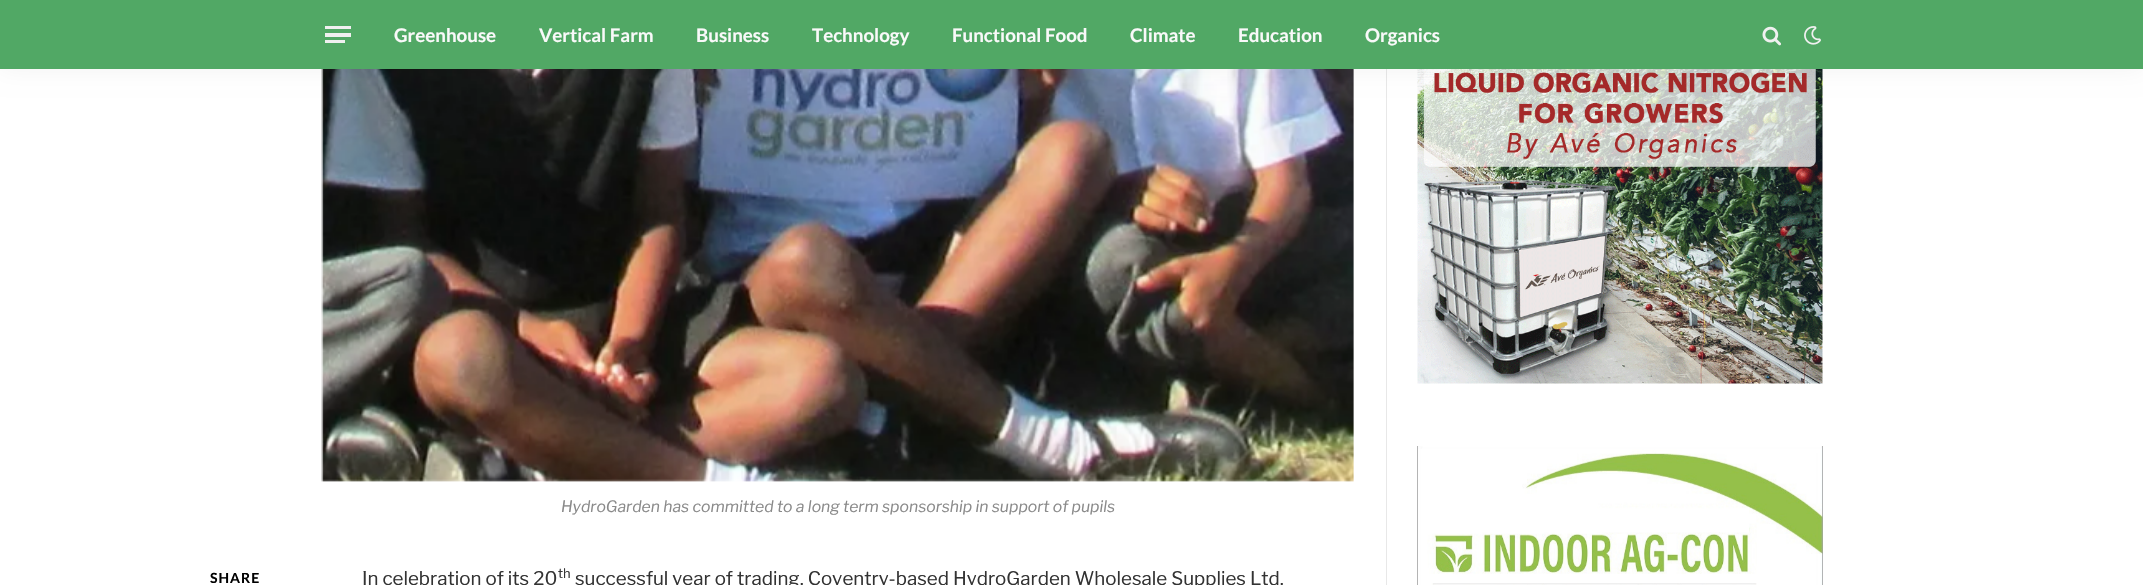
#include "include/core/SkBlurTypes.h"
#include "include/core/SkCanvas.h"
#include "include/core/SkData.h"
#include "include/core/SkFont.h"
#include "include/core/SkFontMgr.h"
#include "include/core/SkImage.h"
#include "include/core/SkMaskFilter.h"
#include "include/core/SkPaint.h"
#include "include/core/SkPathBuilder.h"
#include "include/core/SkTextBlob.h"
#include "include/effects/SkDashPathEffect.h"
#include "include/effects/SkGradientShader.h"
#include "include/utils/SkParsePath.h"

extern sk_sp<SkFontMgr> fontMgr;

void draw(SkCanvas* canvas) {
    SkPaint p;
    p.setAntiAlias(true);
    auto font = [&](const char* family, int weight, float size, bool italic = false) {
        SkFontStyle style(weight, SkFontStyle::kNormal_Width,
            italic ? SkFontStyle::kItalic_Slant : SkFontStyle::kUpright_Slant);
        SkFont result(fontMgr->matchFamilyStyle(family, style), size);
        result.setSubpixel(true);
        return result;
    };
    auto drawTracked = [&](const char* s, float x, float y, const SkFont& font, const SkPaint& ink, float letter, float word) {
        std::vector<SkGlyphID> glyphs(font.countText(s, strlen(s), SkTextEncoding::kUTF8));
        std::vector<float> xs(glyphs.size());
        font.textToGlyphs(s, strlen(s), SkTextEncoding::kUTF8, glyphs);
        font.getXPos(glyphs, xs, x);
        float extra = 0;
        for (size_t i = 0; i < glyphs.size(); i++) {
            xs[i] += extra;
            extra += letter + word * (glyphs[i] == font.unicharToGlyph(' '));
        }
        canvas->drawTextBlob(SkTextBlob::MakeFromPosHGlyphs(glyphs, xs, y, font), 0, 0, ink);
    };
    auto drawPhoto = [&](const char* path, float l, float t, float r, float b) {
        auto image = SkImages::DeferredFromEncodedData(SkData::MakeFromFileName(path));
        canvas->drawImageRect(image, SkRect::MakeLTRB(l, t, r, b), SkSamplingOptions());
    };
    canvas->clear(0xFFFFFFFF);
    drawPhoto("media/3.png", 321, 69, 1354, 482);
    p.setColor(0xFFE8E8E8);
    canvas->drawRect(SkRect::MakeLTRB(1386, 69, 1387, 585), p);
    drawPhoto("media/4.png", 1417, 69, 1823, 384);
    p.setColor(0x0D000000);
    p.setMaskFilter(SkMaskFilter::MakeBlur(kNormal_SkBlurStyle, 12.5f));
    canvas->drawRect(SkRect::MakeLTRB(0, 0, 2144, 69), p);
    p.setMaskFilter(nullptr);
    {
        const struct { float l, t, r, b; SkColor color; } items[] = {
            {0, 0, 2143, 69, 0xFF51A865},
            {325, 40, 345, 43, 0xFFF0F0F0},
            {325, 26, 351, 29, 0xFFF0F0F0},
            {325, 33, 351, 37, 0xFFF0F0F0},
        };
        for (auto [l, t, r, b, color] : items) {
            p.setColor(color);
            canvas->drawRect(SkRect::MakeLTRB(l, t, r, b), p);
        }
    }
    auto font1 = font("Lato", 700, 18.75f);
    p.setColor(0xFFF9F9F9);
    {
        const struct { const char* s; float x, y; } items[] = {
            {"Greenhouse", 394, 42},
            {"Vertical Farm", 539, 42},
            {"Business", 696, 42},
            {"Technology", 812, 42},
            {"Functional Food", 952, 42},
            {"Climate", 1130, 42},
            {"Education", 1238, 42},
            {"Organics", 1365, 42},
        };
        for (auto [s, x, y] : items) {
            canvas->drawString(s, x, y, font1, p);
        }
    }
    drawPhoto("media/1.png", 1762, 26, 1781, 46);
    drawPhoto("media/2.png", 1804, 26, 1821, 45);
    auto font2 = font("Libre Franklin", 100, 15.75f, true);
    p.setColor(0xFF8A8A8A);
    canvas->drawString("HydroGarden has committed to a long term sponsorship in support of pupils", 561, 512, font2, p);
    auto font3 = font("Lato", 700, 14);
    p.setColor(0xFF000000);
    drawTracked("SHARE", 210, 583, font3, p, 1, 0);
    auto font4 = font("Libre Franklin", 400, 18.75f);
    p.setColor(0xFF333333);
    canvas->drawString("In celebration of its 20", 362, 585, font4, p);
    auto font5 = font("Libre Franklin", 400, 13);
    canvas->drawString("th", 558, 578, font5, p);
    canvas->drawString("successful year of trading, Coventry-based HydroGarden Wholesale Supplies Ltd,", 575, 585, font4, p);
    drawPhoto("media/5.png", 1417, 446, 1823, 585);
}
